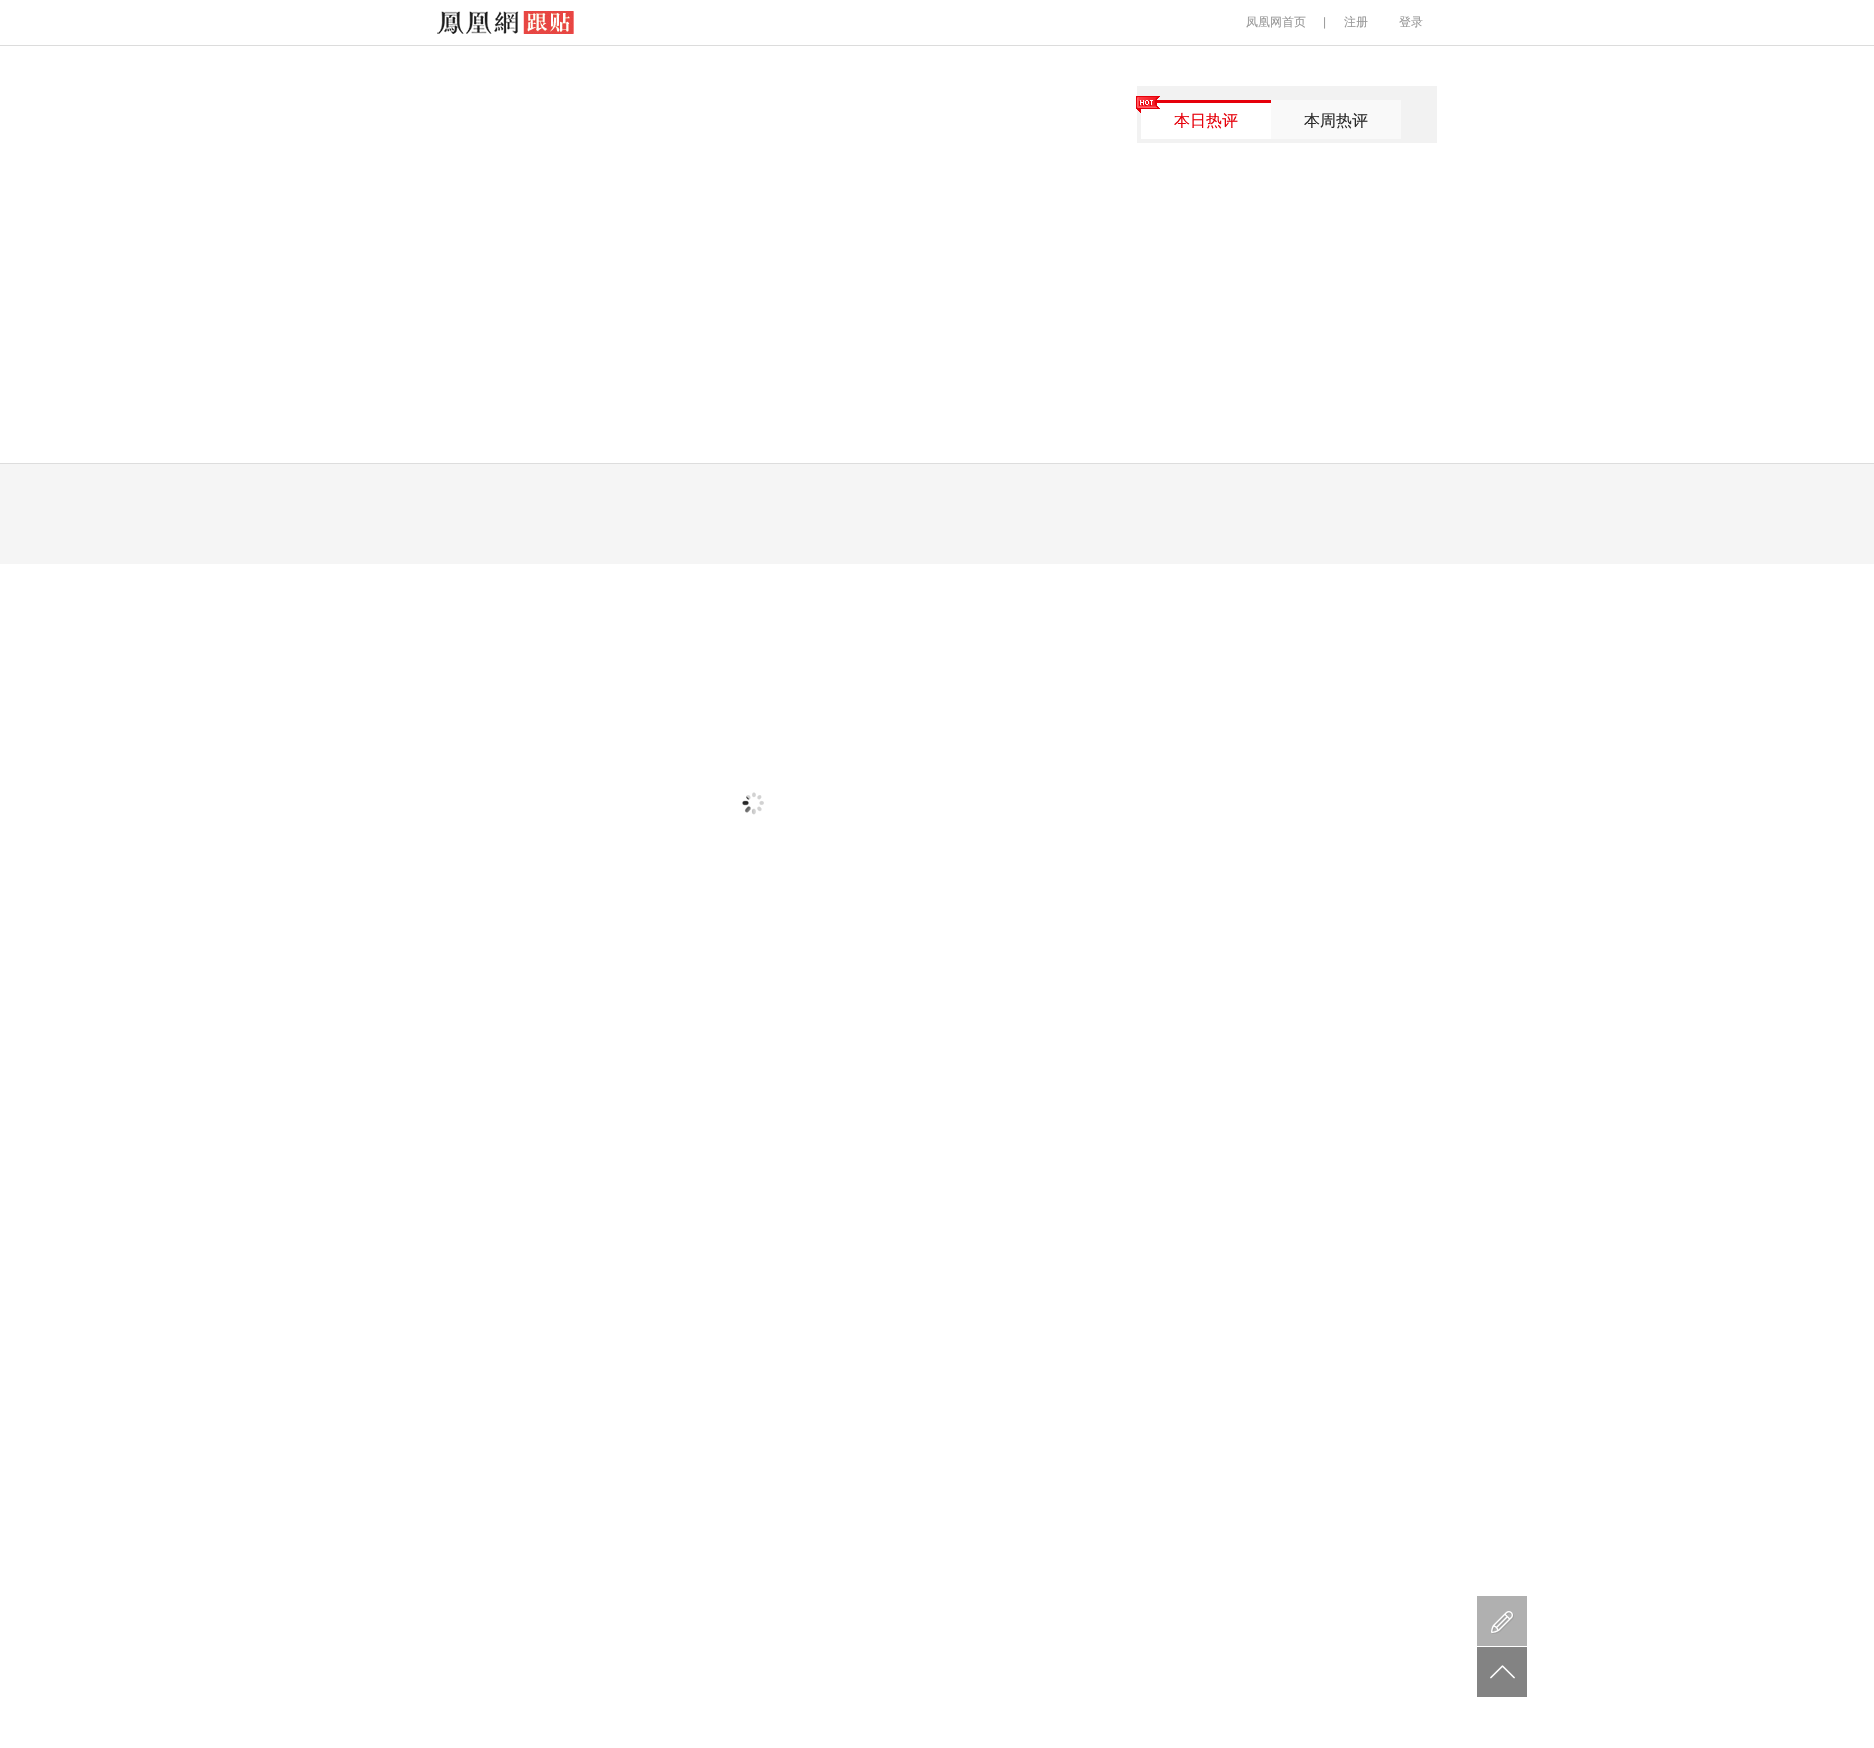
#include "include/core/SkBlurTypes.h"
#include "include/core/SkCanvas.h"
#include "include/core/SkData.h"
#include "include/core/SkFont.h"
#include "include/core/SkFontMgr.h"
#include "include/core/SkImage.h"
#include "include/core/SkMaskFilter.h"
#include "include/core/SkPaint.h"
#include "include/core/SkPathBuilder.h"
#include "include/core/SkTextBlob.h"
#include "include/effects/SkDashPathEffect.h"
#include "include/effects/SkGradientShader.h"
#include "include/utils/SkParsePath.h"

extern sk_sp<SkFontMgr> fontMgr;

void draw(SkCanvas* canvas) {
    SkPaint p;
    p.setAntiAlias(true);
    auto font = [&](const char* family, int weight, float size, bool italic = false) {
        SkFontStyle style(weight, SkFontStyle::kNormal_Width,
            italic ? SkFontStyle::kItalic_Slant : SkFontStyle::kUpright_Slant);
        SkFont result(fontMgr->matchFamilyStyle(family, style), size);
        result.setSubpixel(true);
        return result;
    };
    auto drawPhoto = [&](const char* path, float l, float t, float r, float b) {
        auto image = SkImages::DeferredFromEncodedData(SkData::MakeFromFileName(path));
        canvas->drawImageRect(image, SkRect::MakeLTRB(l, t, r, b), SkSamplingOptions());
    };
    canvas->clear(0xFFFFFFFF);
    p.setColor(0xFFDCDCDC);
    canvas->drawRect(SkRect::MakeLTRB(0, 45, 1874, 46), p);
    drawPhoto("media/1.png", 437, 11, 574, 34);
    auto font1 = font("WenQuanYi Zen Hei", 500, 12);
    p.setColor(0xFF999999);
    canvas->drawString("凤凰网首页", 1246, 26, font1, p);
    auto font2 = font("Liberation Sans", 400, 12);
    canvas->drawString("|", 1323, 26, font2, p);
    canvas->drawString("注册", 1344, 26, font1, p);
    canvas->drawString("登录", 1399, 26, font1, p);
    {
        const struct { float l, t, r, b; SkColor color; } items[] = {
            {1137, 86, 1437, 143, 0xFFF2F2F2},
            {1141, 103, 1271, 139, 0xFFFFFFFF},
            {1157, 100, 1271, 103, 0xFFE6000A},
        };
        for (auto [l, t, r, b, color] : items) {
            p.setColor(color);
            canvas->drawRect(SkRect::MakeLTRB(l, t, r, b), p);
        }
    }
    drawPhoto("media/2.png", 1136, 96, 1160, 113);
    auto font3 = font("WenQuanYi Zen Hei", 500, 16);
    canvas->drawString("本日热评", 1174, 126, font3, p);
    p.setColor(0xFFF9F9F9);
    canvas->drawRect(SkRect::MakeLTRB(1271, 100, 1401, 139), p);
    p.setColor(0xFF2B2B2B);
    canvas->drawString("本周热评", 1304, 126, font3, p);
    drawPhoto("media/3.png", 1477, 1596, 1527, 1646);
    drawPhoto("media/4.png", 1477, 1647, 1527, 1697);
    p.setColor(0xFFF5F5F5);
    canvas->drawRect(SkRect::MakeLTRB(0, 464, 1874, 564), p);
    p.setColor(0xFFDDDDDD);
    canvas->drawRect(SkRect::MakeLTRB(0, 463, 1874, 464), p);
    drawPhoto("media/5.png", 742, 792, 764, 815);
}
